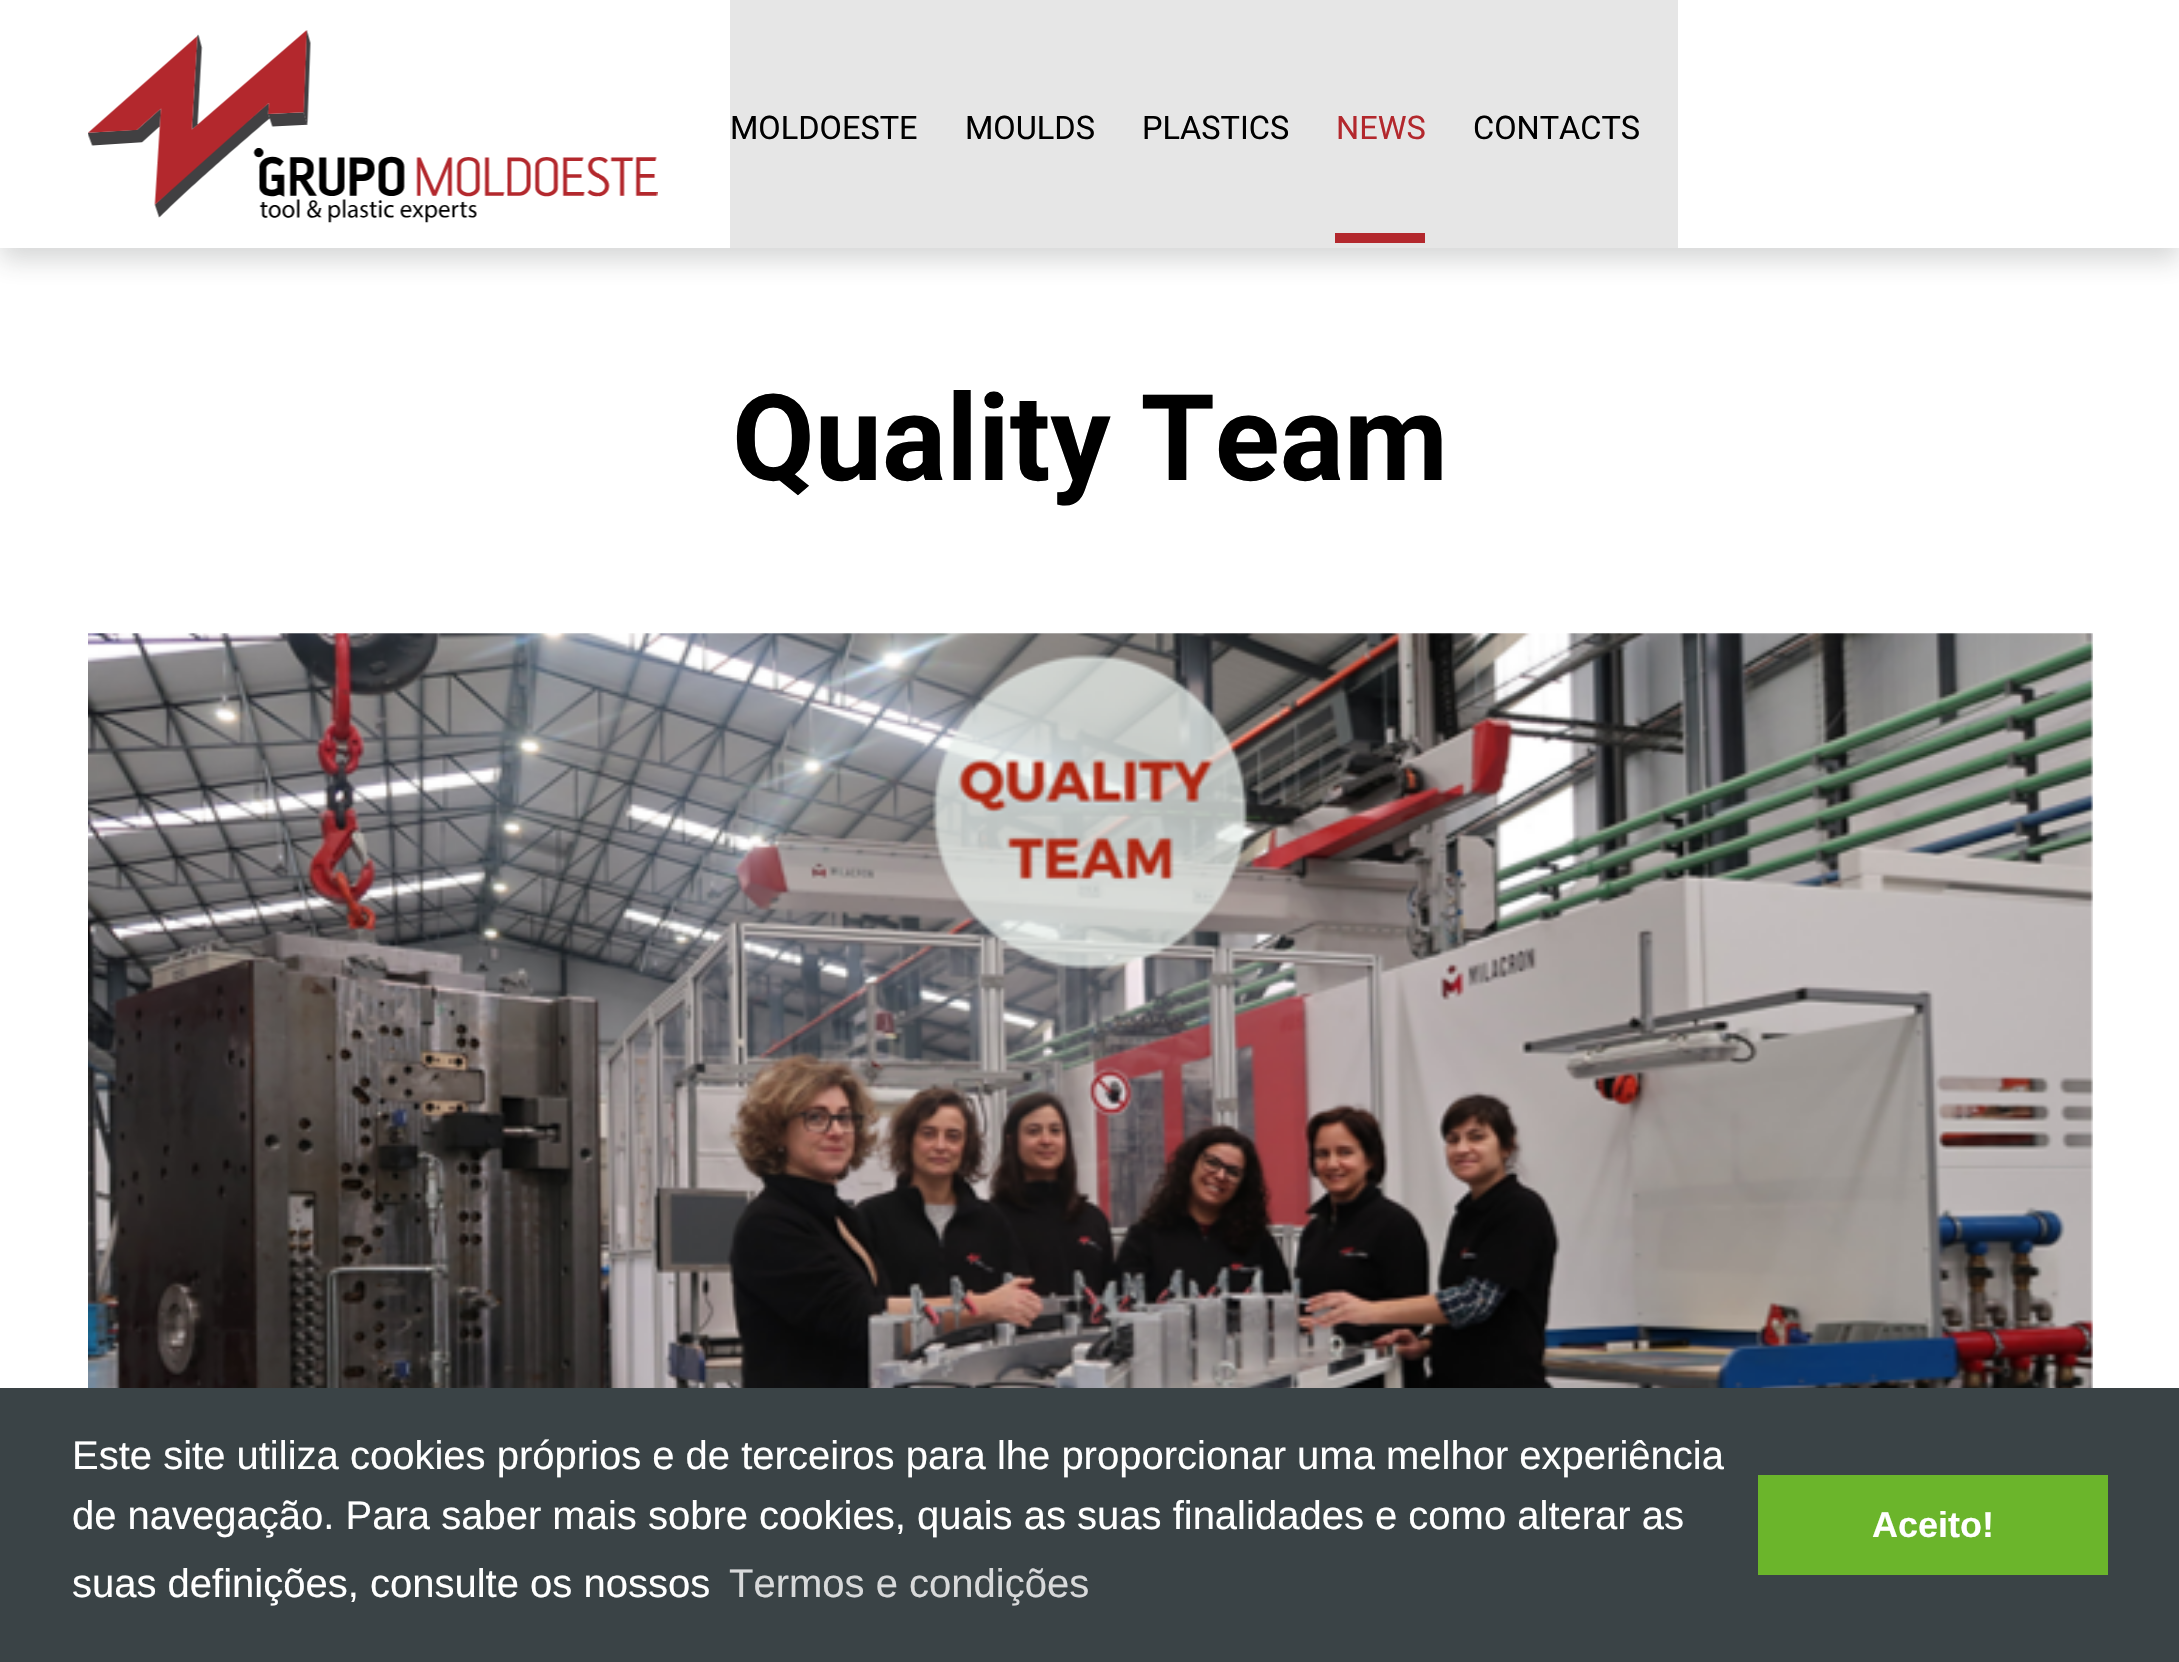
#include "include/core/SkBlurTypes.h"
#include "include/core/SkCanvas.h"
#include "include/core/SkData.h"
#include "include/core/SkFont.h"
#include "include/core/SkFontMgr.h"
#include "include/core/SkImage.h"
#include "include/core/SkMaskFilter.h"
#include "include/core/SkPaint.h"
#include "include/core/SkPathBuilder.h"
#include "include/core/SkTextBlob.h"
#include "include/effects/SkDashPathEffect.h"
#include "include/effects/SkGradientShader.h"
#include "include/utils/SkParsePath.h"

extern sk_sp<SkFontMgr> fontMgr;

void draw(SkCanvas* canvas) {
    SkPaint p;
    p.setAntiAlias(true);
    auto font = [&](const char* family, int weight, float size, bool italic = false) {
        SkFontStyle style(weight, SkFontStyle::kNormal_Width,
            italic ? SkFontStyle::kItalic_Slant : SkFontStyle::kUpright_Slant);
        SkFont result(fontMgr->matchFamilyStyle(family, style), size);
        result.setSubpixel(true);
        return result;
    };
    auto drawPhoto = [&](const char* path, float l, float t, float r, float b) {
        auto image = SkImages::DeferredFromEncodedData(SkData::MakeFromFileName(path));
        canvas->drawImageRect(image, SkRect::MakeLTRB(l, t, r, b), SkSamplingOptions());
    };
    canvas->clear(0xFFFFFFFF);
    p.setColor(0x332E3232);
    p.setMaskFilter(SkMaskFilter::MakeBlur(kNormal_SkBlurStyle, 12.5f));
    canvas->drawRect(SkRect::MakeLTRB(0, 13, 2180, 260), p);
    p.setMaskFilter(nullptr);
    p.setColor(0xFFFFFFFF);
    canvas->drawRect(SkRect::MakeLTRB(0, 0, 2179, 248), p);
    drawPhoto("media/1.png", 88, 30, 658, 223);
    p.setColor(0xFFE6E6E6);
    canvas->drawRect(SkRect::MakeLTRB(730, 0, 1678, 248), p);
    auto font1 = font("Roboto", 400, 32.5f);
    p.setColor(0xFF000000);
    {
        const struct { const char* s; float x, y; } items[] = {
            {"MOLDOESTE", 730, 139},
            {"MOULDS", 965, 139},
            {"PLASTICS", 1142, 139},
        };
        for (auto [s, x, y] : items) {
            canvas->drawString(s, x, y, font1, p);
        }
    }
    p.setColor(0xFFB3282D);
    canvas->drawString("NEWS", 1336, 139, font1, p);
    canvas->drawRect(SkRect::MakeLTRB(1335, 233, 1425, 243), p);
    p.setColor(0xFF000000);
    canvas->drawString("CONTACTS", 1473, 139, font1, p);
    auto font2 = font("Roboto", 700, 120);
    canvas->drawString("Quality Team", 732, 480, font2, p);
    drawPhoto("media/2.png", 88, 633, 2093, 1388);
    p.setColor(0xFF3A4346);
    canvas->drawRect(SkRect::MakeLTRB(0, 1388, 2179, 1662), p);
    auto font3 = font("Liberation Sans", 400, 40);
    p.setColor(0xFFFFFFFF);
    {
        const struct { const char* s; float x, y; } items[] = {
            {"Este site utiliza cookies próprios e de terceiros para lhe proporcionar uma melhor experiência", 72, 1469},
            {"de navegação. Para saber mais sobre cookies, quais as suas finalidades e como alterar as", 72, 1529},
            {"suas definições, consulte os nossos", 72, 1597},
        };
        for (auto [s, x, y] : items) {
            canvas->drawString(s, x, y, font3, p);
        }
    }
    p.setColor(0xFFD8D9DA);
    canvas->drawString("Termos e condições", 729, 1597, font3, p);
    p.setColor(0xFF6BB52B);
    canvas->drawRect(SkRect::MakeLTRB(1758, 1475, 2108, 1575), p);
    auto font4 = font("Liberation Sans", 700, 36);
    p.setColor(0xFFFFFFFF);
    canvas->drawString("Aceito!", 1872, 1537, font4, p);
}
